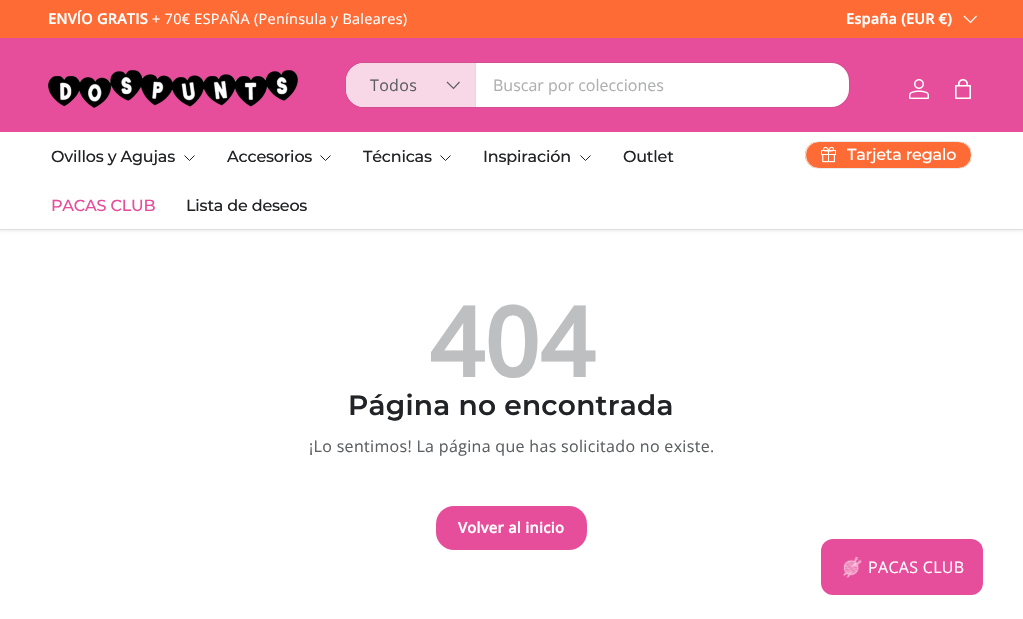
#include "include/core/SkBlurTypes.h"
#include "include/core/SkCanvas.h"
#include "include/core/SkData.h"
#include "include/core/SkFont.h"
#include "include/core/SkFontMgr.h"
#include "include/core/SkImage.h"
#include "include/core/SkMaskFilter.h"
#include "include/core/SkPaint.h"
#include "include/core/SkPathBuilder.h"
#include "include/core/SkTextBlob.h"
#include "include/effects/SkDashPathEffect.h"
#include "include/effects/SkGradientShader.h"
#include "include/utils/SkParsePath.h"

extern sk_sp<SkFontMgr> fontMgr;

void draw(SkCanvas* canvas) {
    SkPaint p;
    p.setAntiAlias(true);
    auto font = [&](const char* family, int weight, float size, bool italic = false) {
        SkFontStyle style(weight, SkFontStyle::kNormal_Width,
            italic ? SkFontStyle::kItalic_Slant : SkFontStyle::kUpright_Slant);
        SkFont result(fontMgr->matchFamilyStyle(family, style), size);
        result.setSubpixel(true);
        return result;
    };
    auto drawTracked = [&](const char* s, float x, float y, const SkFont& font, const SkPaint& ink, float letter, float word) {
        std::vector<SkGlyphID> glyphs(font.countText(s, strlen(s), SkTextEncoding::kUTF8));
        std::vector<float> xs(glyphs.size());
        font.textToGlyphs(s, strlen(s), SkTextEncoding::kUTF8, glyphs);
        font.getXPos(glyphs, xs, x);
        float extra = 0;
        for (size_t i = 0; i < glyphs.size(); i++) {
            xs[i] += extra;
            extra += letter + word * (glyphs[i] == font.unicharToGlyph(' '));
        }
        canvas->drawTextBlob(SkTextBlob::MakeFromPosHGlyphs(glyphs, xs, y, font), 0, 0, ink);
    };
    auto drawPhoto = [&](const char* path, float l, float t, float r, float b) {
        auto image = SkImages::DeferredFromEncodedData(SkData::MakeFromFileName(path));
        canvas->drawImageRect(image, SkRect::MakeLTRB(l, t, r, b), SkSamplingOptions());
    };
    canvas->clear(0xFFFFFFFF);
    p.setColor(0x14000000);
    p.setMaskFilter(SkMaskFilter::MakeBlur(kNormal_SkBlurStyle, 1.5f));
    canvas->drawRect(SkRect::MakeLTRB(-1, 37, 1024, 231), p);
    p.setMaskFilter(nullptr);
    p.setColor(0xFFFF6B35);
    canvas->drawRect(SkRect::MakeLTRB(0, 0, 1023, 38), p);
    auto font1 = font("Open Sans", 700, 14.4f);
    p.setColor(0xFFFFFFFF);
    drawTracked("ENVÍO GRATIS", 48, 24, font1, p, 0.32f, 0);
    auto font2 = font("Open Sans", 400, 14.4f);
    drawTracked("+ 70€ ESPAÑA (Península y Baleares)", 152, 24, font2, p, 0.32f, 0);
    drawTracked("España (EUR €)", 846, 24, font1, p, 0.32f, 0);
    p.setStyle(SkPaint::kStroke_Style);
    p.setStrokeWidth(1.2f);
    canvas->drawPath(SkPathBuilder().moveTo(976.5f, 16).lineTo(970.5f, 22.5f).lineTo(964, 16).detach(), p);
    p.setStyle(SkPaint::kFill_Style);
    p.setColor(0xFFE64D9A);
    canvas->drawRect(SkRect::MakeLTRB(0, 38, 1023, 132), p);
    drawPhoto("media/1.png", 48, 70, 298, 108);
    p.setStyle(SkPaint::kStroke_Style);
    p.setStrokeWidth(1);
    p.setColor(0xFFD15092);
    canvas->drawRoundRect(SkRect::MakeLTRB(345.5f, 62.5f, 849.5f, 107.5f), 17.5f, 17.5f, p);
    p.setStyle(SkPaint::kFill_Style);
    p.setColor(0xFFFFFFFF);
    canvas->drawRoundRect(SkRect::MakeLTRB(346, 63, 849, 107), 18, 18, p);
    p.setColor(0xFFF8D7E6);
    canvas->drawPath(SkPathBuilder().moveTo(364, 63).lineTo(476, 63).lineTo(476, 107).lineTo(364, 107).cubicTo(354, 107, 346, 99, 346, 89).lineTo(346, 81).cubicTo(346, 71, 354, 63, 364, 63).close().detach(), p);
    p.setColor(0xFFF0D1DF);
    canvas->drawRect(SkRect::MakeLTRB(475, 63, 476, 107), p);
    auto font3 = font("Open Sans", 400, 16);
    p.setColor(0xFF5C5F63);
    drawTracked("Todos", 370, 91, font3, p, 0.32f, 0);
    p.setStyle(SkPaint::kStroke_Style);
    p.setStrokeWidth(1.2f);
    canvas->drawPath(SkPathBuilder().moveTo(459.5f, 82).lineTo(453.5f, 88.5f).lineTo(447, 82).detach(), p);
    p.setStyle(SkPaint::kFill_Style);
    p.setColor(0xFFAEAFB1);
    canvas->drawString("Buscar por colecciones", 493, 91, font3, p);
    drawPhoto("media/2.png", 909, 79, 929, 99);
    drawPhoto("media/3.png", 955, 79, 971, 99);
    p.setColor(0xFFFFFFFF);
    canvas->drawRect(SkRect::MakeLTRB(0, 132, 1023, 229), p);
    auto font4 = font("Montserrat", 500, 16);
    p.setColor(0xFF212326);
    drawTracked("Ovillos y Agujas", 51, 162, font4, p, -0.2f, 0);
    p.setStyle(SkPaint::kStroke_Style);
    p.setStrokeWidth(1);
    p.setColor(0xFF222222);
    canvas->drawPath(SkPathBuilder().moveTo(194.5f, 155.5f).lineTo(189.5f, 160.5f).lineTo(184.5f, 155.5f).detach(), p);
    p.setStyle(SkPaint::kFill_Style);
    p.setColor(0xFF212326);
    drawTracked("Accesorios", 227, 162, font4, p, -0.2f, 0);
    p.setStyle(SkPaint::kStroke_Style);
    p.setColor(0xFF222222);
    canvas->drawPath(SkPathBuilder().moveTo(330.5f, 155.5f).lineTo(325.5f, 160.5f).lineTo(320.5f, 155.5f).detach(), p);
    p.setStyle(SkPaint::kFill_Style);
    p.setColor(0xFF212326);
    drawTracked("Técnicas", 363, 162, font4, p, -0.2f, 0);
    p.setStyle(SkPaint::kStroke_Style);
    p.setColor(0xFF222222);
    canvas->drawPath(SkPathBuilder().moveTo(450.5f, 155.5f).lineTo(445.5f, 160.5f).lineTo(440.5f, 155.5f).detach(), p);
    p.setStyle(SkPaint::kFill_Style);
    p.setColor(0xFF212326);
    drawTracked("Inspiración", 483, 162, font4, p, -0.2f, 0);
    p.setStyle(SkPaint::kStroke_Style);
    p.setColor(0xFF222222);
    canvas->drawPath(SkPathBuilder().moveTo(590.5f, 155.5f).lineTo(585.5f, 160.5f).lineTo(580.5f, 155.5f).detach(), p);
    p.setStyle(SkPaint::kFill_Style);
    p.setColor(0xFF212326);
    drawTracked("Outlet", 623, 162, font4, p, -0.2f, 0);
    p.setColor(0xFFE64D9A);
    drawTracked("PACAS CLUB", 51, 211, font4, p, -0.2f, 0);
    p.setColor(0xFF212326);
    drawTracked("Lista de deseos", 186, 211, font4, p, -0.2f, 0);
    canvas->save();
    canvas->clipPath(SkPathBuilder().moveTo(819, 141).lineTo(958, 141).cubicTo(965.5f, 141, 972, 147.5f, 972, 155).cubicTo(972, 162.5f, 965.5f, 169, 958, 169).lineTo(819, 169).cubicTo(811.5f, 169, 805, 162.5f, 805, 155).cubicTo(805, 147.5f, 811.5f, 141, 819, 141).close().detach(), true);
    {
        const SkColor colors[] = {0xFFFF8C62, 0xFFFF6B35, 0xFFFF6B35};
        const float stops[] = {0.6f, 0.6f, 1};
        const SkPoint ends[] = {{487, 96}, {960, 214}};
        p.setShader(SkGradientShader::MakeLinear(ends, colors, stops, 3, SkTileMode::kClamp));
        p.setAlpha(255);
    }
    canvas->drawRect(SkRect::MakeLTRB(805, 142, 971, 168), p);
    canvas->restore();
    p.setStyle(SkPaint::kStroke_Style);
    p.setShader(nullptr);
    p.setColor(0xFFEBEBEB);
    canvas->drawRoundRect(SkRect::MakeLTRB(805.5f, 141.5f, 971.5f, 168.5f), 13.5f, 13.5f, p);
    drawPhoto("media/4.png", 821, 146, 836, 163);
    p.setStyle(SkPaint::kFill_Style);
    p.setColor(0xFFFFFFFF);
    drawTracked("Tarjeta regalo", 847, 160, font4, p, -0.2f, 0);
    p.setColor(0xFFDEDEDE);
    canvas->drawRect(SkRect::MakeLTRB(0, 229, 1023, 230), p);
    auto font5 = font("Open Sans", 700, 96);
    p.setColor(0xFFBEBFC1);
    drawTracked("404", 429, 377, font5, p, 0.32f, 0);
    auto font6 = font("Montserrat", 600, 28);
    p.setColor(0xFF212326);
    drawTracked("Página no encontrada", 348, 415, font6, p, 0.25f, 0);
    p.setColor(0xFF5C5F63);
    drawTracked("¡Lo sentimos! La página que has solicitado no existe.", 309, 452, font3, p, 0.32f, 0);
    {
        const SkColor colors[] = {0xFFEC75B1, 0xFFE64D9A, 0xFFE64D9A};
        const float stops[] = {0.6f, 0.6f, 1};
        const SkPoint ends[] = {{142, 474}, {579, 582}};
        p.setShader(SkGradientShader::MakeLinear(ends, colors, stops, 3, SkTileMode::kClamp));
        p.setAlpha(255);
    }
    canvas->drawRoundRect(SkRect::MakeLTRB(436, 506, 587, 550), 18, 18, p);
    auto font7 = font("Open Sans", 700, 14.75f);
    p.setShader(nullptr);
    p.setColor(0xFFFFFFFF);
    drawTracked("Volver al inicio", 458, 533, font7, p, 0.32f, 0);
    p.setColor(0xFFE64D9A);
    canvas->drawRoundRect(SkRect::MakeLTRB(821, 539, 983, 595), 12, 12, p);
    drawPhoto("media/5.png", 843, 556, 862, 578);
    p.setColor(0xFFFFFFFF);
    drawTracked("PACAS CLUB", 868, 573, font3, p, 0.32f, 0);
}
